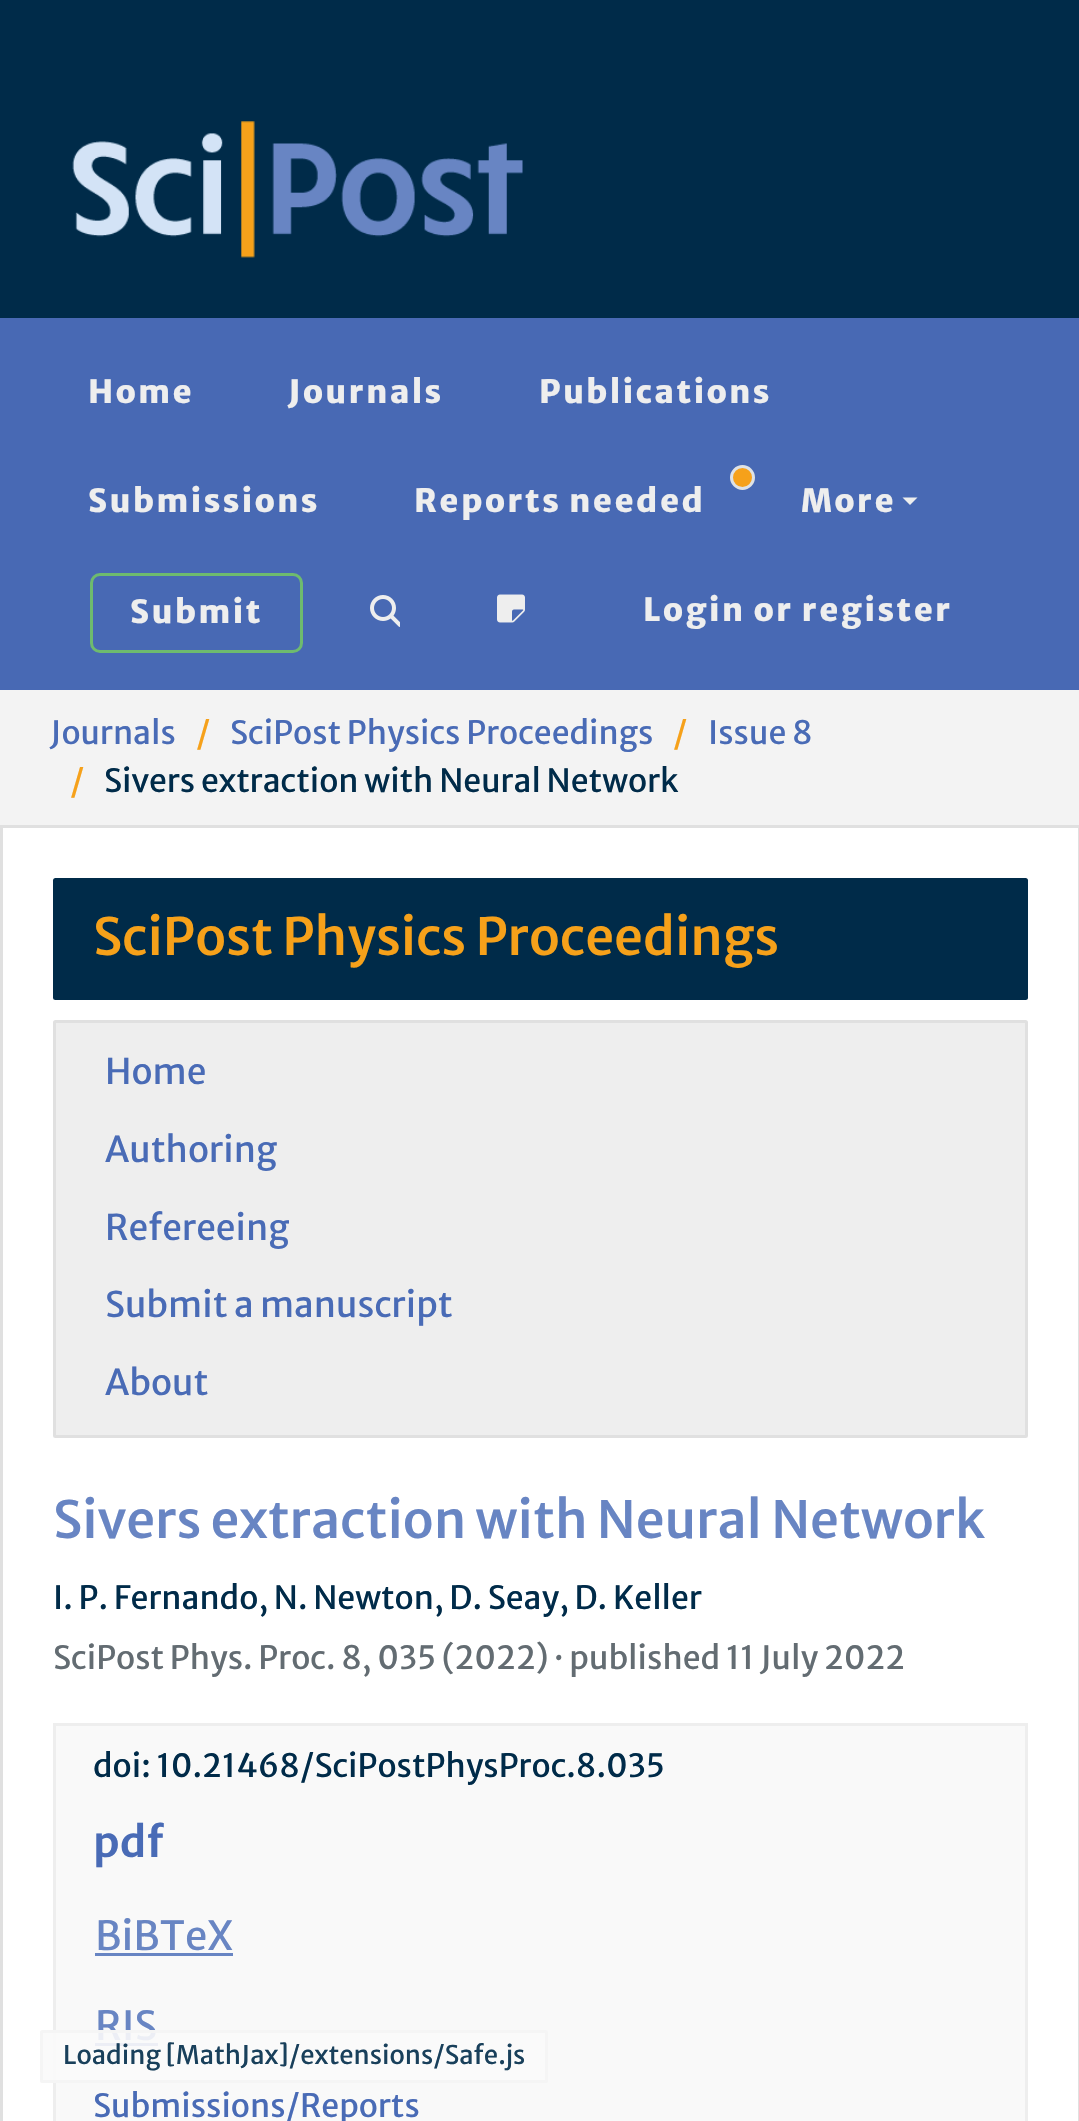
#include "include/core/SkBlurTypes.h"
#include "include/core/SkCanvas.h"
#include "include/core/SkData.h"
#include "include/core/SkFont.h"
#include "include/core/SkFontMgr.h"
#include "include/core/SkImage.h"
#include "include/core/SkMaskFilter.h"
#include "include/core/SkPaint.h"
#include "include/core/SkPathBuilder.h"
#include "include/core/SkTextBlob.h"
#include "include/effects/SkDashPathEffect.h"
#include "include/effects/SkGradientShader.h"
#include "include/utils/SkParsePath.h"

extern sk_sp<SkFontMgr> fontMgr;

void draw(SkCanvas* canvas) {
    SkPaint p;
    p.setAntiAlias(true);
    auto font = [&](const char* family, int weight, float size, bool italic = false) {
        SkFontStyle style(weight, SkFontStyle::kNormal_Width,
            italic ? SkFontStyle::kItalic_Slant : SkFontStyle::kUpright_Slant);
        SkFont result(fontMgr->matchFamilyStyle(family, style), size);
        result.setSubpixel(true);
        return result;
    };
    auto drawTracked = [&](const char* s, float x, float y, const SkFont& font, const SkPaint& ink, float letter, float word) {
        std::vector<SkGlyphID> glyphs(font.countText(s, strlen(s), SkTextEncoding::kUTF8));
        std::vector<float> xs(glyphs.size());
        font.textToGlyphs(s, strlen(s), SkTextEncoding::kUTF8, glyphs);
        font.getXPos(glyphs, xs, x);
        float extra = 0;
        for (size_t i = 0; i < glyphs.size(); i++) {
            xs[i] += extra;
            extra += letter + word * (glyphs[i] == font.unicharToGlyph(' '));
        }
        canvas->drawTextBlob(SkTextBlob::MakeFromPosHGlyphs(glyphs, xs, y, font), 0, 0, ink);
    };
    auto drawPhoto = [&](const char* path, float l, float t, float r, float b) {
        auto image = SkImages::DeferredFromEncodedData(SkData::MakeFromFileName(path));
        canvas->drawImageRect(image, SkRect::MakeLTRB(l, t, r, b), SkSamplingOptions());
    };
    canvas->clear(0xFFF3F3F3);
    p.setColor(0xFF002B49);
    canvas->drawRect(SkRect::MakeLTRB(0, 0, 1079, 318), p);
    drawPhoto("media/1.png", 72, 121, 523, 258);
    p.setColor(0xFF4869B4);
    canvas->drawRect(SkRect::MakeLTRB(0, 318, 1079, 690), p);
    auto font1 = font("Merriweather Sans", 800, 32);
    p.setColor(0xFFEEEEEE);
    {
        const struct { const char* s; float x, y; } items[] = {
            {"Home", 88, 403},
            {"Journals", 288, 403},
            {"Publications", 539, 403},
            {"Submissions", 88, 512},
        };
        for (auto [s, x, y] : items) {
            drawTracked(s, x, y, font1, p, 2.5f, 0);
        }
    }
    p.setColor(0xFFF6A11A);
    canvas->drawCircle(742.5f, 477.5f, 11, p);
    p.setStyle(SkPaint::kStroke_Style);
    p.setStrokeWidth(3);
    p.setColor(0xFFDEE2E6);
    canvas->drawCircle(742.5f, 477.5f, 11, p);
    p.setStyle(SkPaint::kFill_Style);
    p.setColor(0xFFEEEEEE);
    drawTracked("Reports needed", 414, 512, font1, p, 2.5f, 0);
    drawTracked("More", 801, 512, font1, p, 2.5f, 0);
    canvas->drawPath(SkPathBuilder().moveTo(902.5f, 497.5f).lineTo(917.5f, 497.5f).lineTo(910, 505).close().detach(), p);
    p.setStyle(SkPaint::kStroke_Style);
    p.setColor(0xFF6EBB6E);
    canvas->drawRoundRect(SkRect::MakeLTRB(91.5f, 574.5f, 301.5f, 651.5f), 8.5f, 8.5f, p);
    p.setStyle(SkPaint::kFill_Style);
    p.setColor(0xFFEEEEEE);
    drawTracked("Submit", 130, 623, font1, p, 2.5f, 0);
    drawPhoto("media/2.png", 370, 595, 400, 627);
    drawPhoto("media/3.png", 497, 594, 525, 623);
    drawTracked("Login or register", 643, 621, font1, p, 2.5f, 0);
    auto font2 = font("Merriweather Sans", 400, 32);
    p.setColor(0xFF496BB6);
    canvas->drawString("Journals", 50, 744, font2, p);
    p.setColor(0xFFF6A11A);
    canvas->drawString("/", 196, 744, font2, p);
    p.setColor(0xFF496BB6);
    canvas->drawString("SciPost Physics Proceedings", 230, 744, font2, p);
    p.setColor(0xFFF6A11A);
    canvas->drawString("/", 673, 744, font2, p);
    p.setColor(0xFF496BB6);
    canvas->drawString("Issue 8", 708, 744, font2, p);
    p.setColor(0xFFF6A11A);
    canvas->drawString("/", 70, 792, font2, p);
    p.setColor(0xFF002B49);
    canvas->drawString("Sivers extraction with Neural Network", 104, 792, font2, p);
    {
        const struct { float l, t, r, b; SkColor color; } items[] = {
            {3, 828, 1078, 2121, 0xFFFFFFFF},
            {0, 825, 1079, 828, 0xFFE0E0E0},
            {1078, 825, 1079, 2121, 0xFFE0E0E0},
            {0, 825, 3, 2121, 0xFFE0E0E0},
        };
        for (auto [l, t, r, b, color] : items) {
            p.setColor(color);
            canvas->drawRect(SkRect::MakeLTRB(l, t, r, b), p);
        }
    }
    p.setColor(0xFF002B49);
    canvas->drawRoundRect(SkRect::MakeLTRB(53, 878, 1028, 1000), 2.5f, 2.5f, p);
    auto font3 = font("Merriweather Sans", 500, 51.2f);
    p.setColor(0xFFF6A11A);
    canvas->drawString("SciPost Physics Proceedings", 93, 955, font3, p);
    p.setColor(0xFFEEEEEE);
    canvas->drawRoundRect(SkRect::MakeLTRB(54.5f, 1021.5f, 1026.5f, 1436.5f), 1, 1, p);
    p.setStyle(SkPaint::kStroke_Style);
    p.setColor(0xFFE0E0E0);
    canvas->drawRoundRect(SkRect::MakeLTRB(54.5f, 1021.5f, 1026.5f, 1436.5f), 1, 1, p);
    auto font4 = font("Merriweather Sans", 400, 35.25f);
    p.setStyle(SkPaint::kFill_Style);
    p.setColor(0xFF496BB6);
    {
        const struct { const char* s; float x, y; } items[] = {
            {"Home", 105, 1084},
            {"Authoring", 105, 1162},
            {"Refereeing", 105, 1240},
            {"Submit a manuscript", 105, 1317},
            {"About", 105, 1395},
        };
        for (auto [s, x, y] : items) {
            canvas->drawString(s, x, y, font4, p);
        }
    }
    p.setColor(0xFF6885C3);
    canvas->drawString("Sivers extraction with Neural Network", 53, 1538, font3, p);
    p.setColor(0xFF002B49);
    canvas->drawString("I. P. Fernando, N. Newton, D. Seay, D. Keller", 53, 1609, font2, p);
    p.setColor(0xFF636C72);
    canvas->drawString("SciPost Phys. Proc. 8, 035 (2022) · published 11 July 2022", 53, 1669, font2, p);
    {
        const struct { float l, t, r, b; SkColor color; } items[] = {
            {56, 1726, 1025, 2121, 0xFFF9F9F9},
            {53, 1723, 1028, 1726, 0xFFEEEEEE},
            {1025, 1723, 1028, 2121, 0xFFEEEEEE},
            {53, 1723, 56, 2121, 0xFFEEEEEE},
        };
        for (auto [l, t, r, b, color] : items) {
            p.setColor(color);
            canvas->drawRect(SkRect::MakeLTRB(l, t, r, b), p);
        }
    }
    p.setColor(0xFF002B49);
    canvas->drawString("doi: 10.21468/SciPostPhysProc.8.035", 93, 1777, font2, p);
    auto font5 = font("Merriweather Sans", 600, 42);
    p.setColor(0xFF496BB6);
    canvas->drawString("pdf", 93, 1857, font5, p);
    auto font6 = font("Merriweather Sans", 400, 40);
    p.setColor(0xFF6885C3);
    canvas->drawString("BiBTeX", 95, 1950, font6, p);
    canvas->drawRect(SkRect::MakeLTRB(95, 1953, 233, 1956), p);
    canvas->drawString("RIS", 95, 2040, font6, p);
    canvas->drawRect(SkRect::MakeLTRB(95, 2043, 158, 2046), p);
    p.setColor(0xFF496BB6);
    canvas->drawString("Submissions/Reports", 93, 2117, font2, p);
    p.setColor(0xE6F9F9F9);
    canvas->drawRoundRect(SkRect::MakeLTRB(40, 2030, 548, 2083), 2.5f, 2.5f, p);
    p.setStyle(SkPaint::kStroke_Style);
    p.setColor(0xE6F4F4F4);
    canvas->drawRoundRect(SkRect::MakeLTRB(41.5f, 2031.5f, 546.5f, 2081.5f), 1, 1, p);
    auto font7 = font("Merriweather Sans", 400, 25.6f);
    p.setStyle(SkPaint::kFill_Style);
    p.setColor(0xFF19405B);
    canvas->drawString("Loading [MathJax]/extensions/Safe.js", 63, 2064, font7, p);
}
